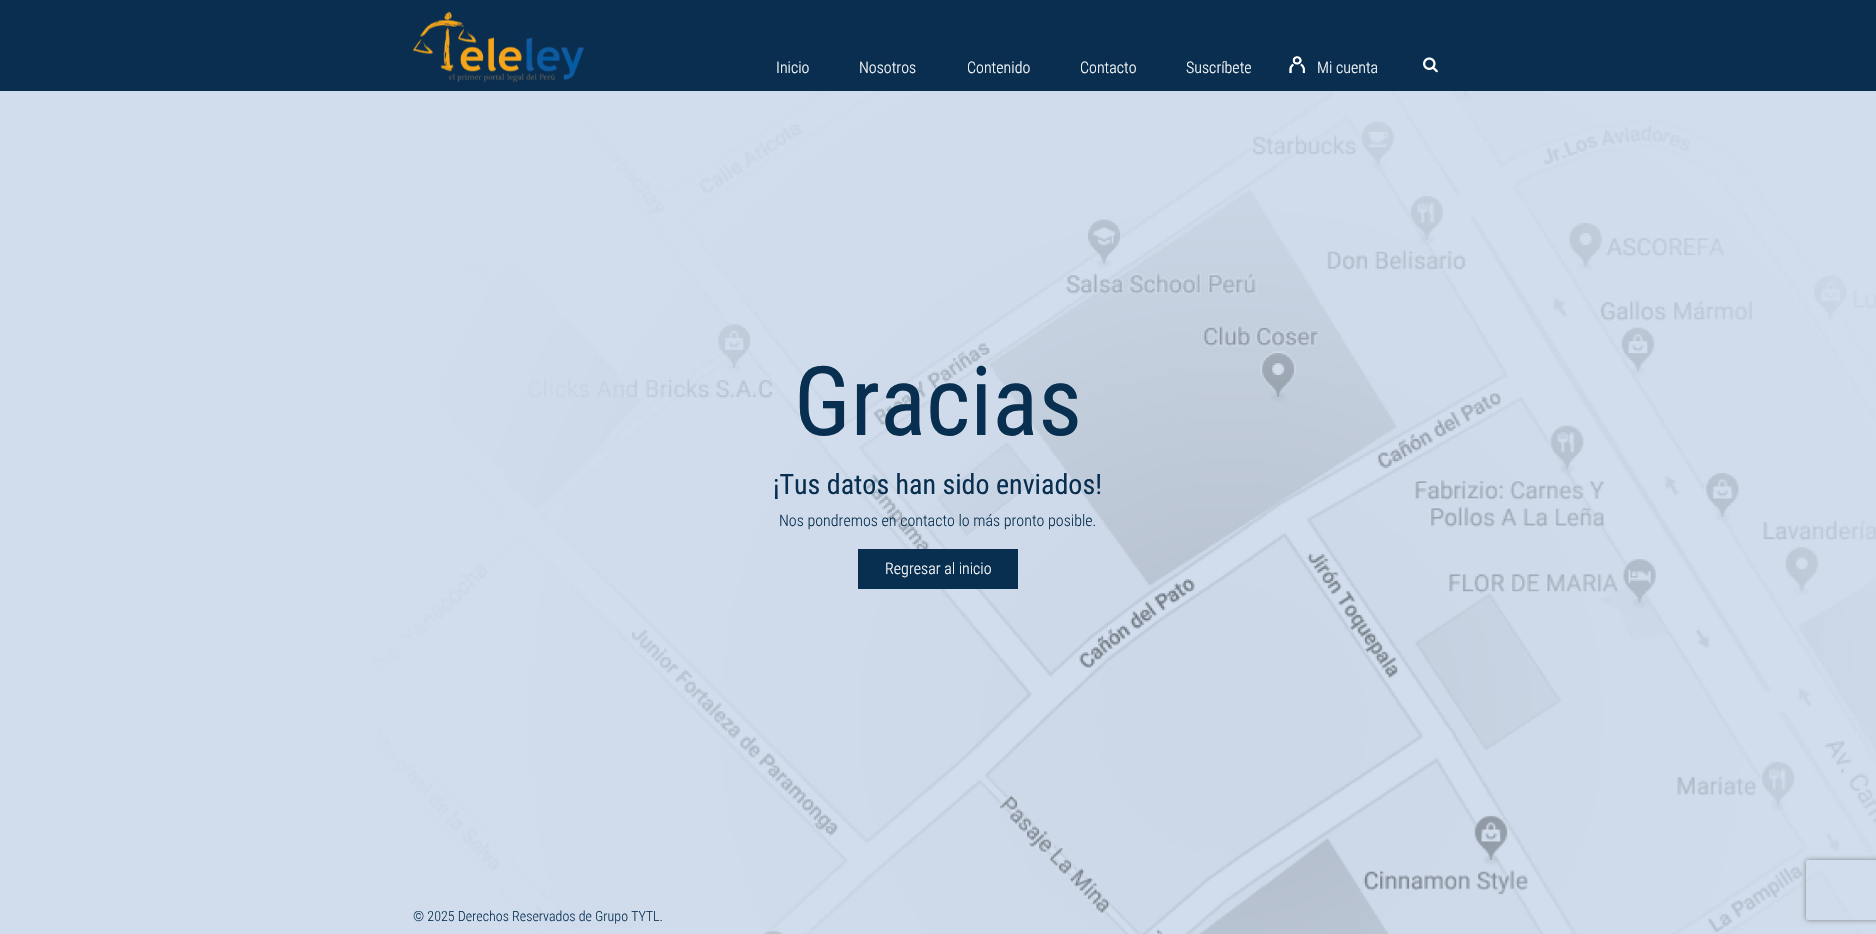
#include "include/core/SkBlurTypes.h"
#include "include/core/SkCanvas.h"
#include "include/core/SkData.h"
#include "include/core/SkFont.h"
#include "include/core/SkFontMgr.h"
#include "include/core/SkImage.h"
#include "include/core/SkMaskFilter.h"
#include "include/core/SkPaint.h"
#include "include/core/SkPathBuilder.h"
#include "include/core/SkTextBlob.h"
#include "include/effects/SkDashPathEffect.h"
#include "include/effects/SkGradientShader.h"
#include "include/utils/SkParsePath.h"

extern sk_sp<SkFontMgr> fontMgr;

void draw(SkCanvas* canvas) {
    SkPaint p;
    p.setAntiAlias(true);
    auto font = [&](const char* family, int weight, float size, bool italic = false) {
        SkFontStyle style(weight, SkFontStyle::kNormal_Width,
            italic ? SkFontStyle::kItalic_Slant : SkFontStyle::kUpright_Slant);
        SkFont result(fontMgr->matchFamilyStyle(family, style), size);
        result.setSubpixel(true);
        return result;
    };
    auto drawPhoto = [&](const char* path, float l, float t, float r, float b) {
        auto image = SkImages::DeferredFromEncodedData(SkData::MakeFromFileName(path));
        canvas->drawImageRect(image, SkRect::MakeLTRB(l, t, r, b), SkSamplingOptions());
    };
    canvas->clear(0xFFFFFFFF);
    p.setColor(0xFF092E50);
    canvas->drawRect(SkRect::MakeLTRB(0, 0, 1876, 91), p);
    drawPhoto("media/1.png", 413, 11, 584, 82);
    auto font1 = font("Roboto Condensed", 300, 16);
    p.setColor(0xFFFFFFFF);
    {
        const struct { const char* s; float x, y; } items[] = {
            {"Inicio", 776, 73},
            {"Nosotros", 859, 73},
            {"Contenido", 967, 73},
            {"Contacto", 1080, 73},
            {"Suscríbete", 1186, 73},
        };
        for (auto [s, x, y] : items) {
            canvas->drawString(s, x, y, font1, p);
        }
    }
    drawPhoto("media/2.png", 1289, 56, 1305, 74);
    canvas->drawString("Mi cuenta", 1317, 73, font1, p);
    drawPhoto("media/3.png", 1423, 57, 1438, 73);
    drawPhoto("media/4.png", 0, 91, 1876, 934);
    auto font2 = font("Roboto Condensed", 400, 96);
    p.setColor(0xFF082F50);
    canvas->drawString("Gracias", 794, 435, font2, p);
    auto font3 = font("Roboto Condensed", 400, 28);
    canvas->drawString("¡Tus datos han sido enviados!", 773, 494, font3, p);
    canvas->drawString("Nos pondremos en contacto lo más pronto posible.", 779, 526, font1, p);
    canvas->drawRect(SkRect::MakeLTRB(858, 549, 1018, 589), p);
    p.setColor(0xFFFFFFFF);
    canvas->drawString("Regresar al inicio", 885, 574, font1, p);
    auto font4 = font("Roboto Condensed", 300, 14);
    p.setColor(0xFF082F50);
    canvas->drawString("© 2025 Derechos Reservados de Grupo TYTL.", 413, 921, font4, p);
    canvas->save();
    canvas->clipPath(SkPathBuilder(SkPathFillType::kEvenOdd).moveTo(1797, 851).lineTo(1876, 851).lineTo(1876, 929).lineTo(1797, 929).close().moveTo(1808, 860).lineTo(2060, 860).cubicTo(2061, 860, 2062, 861, 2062, 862).lineTo(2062, 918).cubicTo(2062, 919, 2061, 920, 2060, 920).lineTo(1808, 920).cubicTo(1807, 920, 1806, 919, 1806, 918).lineTo(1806, 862).cubicTo(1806, 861, 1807, 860, 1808, 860).close().detach(), true);
    p.setColor(0xFF808080);
    p.setMaskFilter(SkMaskFilter::MakeBlur(kNormal_SkBlurStyle, 2.5f));
    canvas->drawRoundRect(SkRect::MakeLTRB(1806, 860, 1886, 920), 2, 2, p);
    p.setMaskFilter(nullptr);
    canvas->restore();
}
